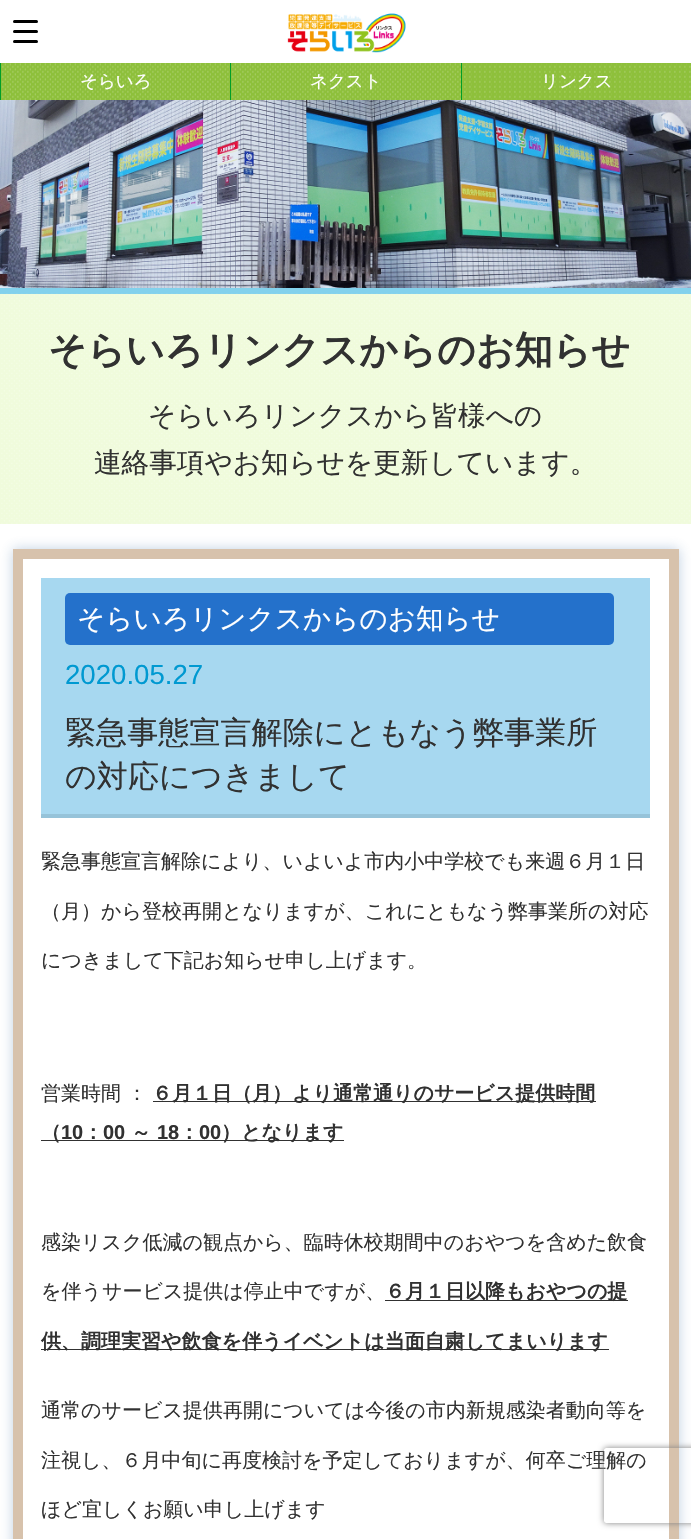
#include "include/core/SkBlurTypes.h"
#include "include/core/SkCanvas.h"
#include "include/core/SkData.h"
#include "include/core/SkFont.h"
#include "include/core/SkFontMgr.h"
#include "include/core/SkImage.h"
#include "include/core/SkMaskFilter.h"
#include "include/core/SkPaint.h"
#include "include/core/SkPathBuilder.h"
#include "include/core/SkTextBlob.h"
#include "include/effects/SkDashPathEffect.h"
#include "include/effects/SkGradientShader.h"
#include "include/utils/SkParsePath.h"

extern sk_sp<SkFontMgr> fontMgr;

void draw(SkCanvas* canvas) {
    SkPaint p;
    p.setAntiAlias(true);
    auto font = [&](const char* family, int weight, float size, bool italic = false) {
        SkFontStyle style(weight, SkFontStyle::kNormal_Width,
            italic ? SkFontStyle::kItalic_Slant : SkFontStyle::kUpright_Slant);
        SkFont result(fontMgr->matchFamilyStyle(family, style), size);
        result.setSubpixel(true);
        return result;
    };
    auto drawPhoto = [&](const char* path, float l, float t, float r, float b) {
        auto image = SkImages::DeferredFromEncodedData(SkData::MakeFromFileName(path));
        canvas->drawImageRect(image, SkRect::MakeLTRB(l, t, r, b), SkSamplingOptions());
    };
    canvas->clear(0xFFFFFFFF);
    p.setColor(0xFF000000);
    canvas->drawRoundRect(SkRect::MakeLTRB(13, 30, 38, 33), 1.5f, 1.5f, p);
    canvas->drawRoundRect(SkRect::MakeLTRB(13, 20, 38, 23), 1.5f, 1.5f, p);
    canvas->drawRoundRect(SkRect::MakeLTRB(13, 40, 38, 43), 1.5f, 1.5f, p);
    drawPhoto("media/1.png", 287, 13, 406, 53);
    p.setColor(0xFF8EC03B);
    canvas->drawRect(SkRect::MakeLTRB(1, 63, 230, 100), p);
    drawPhoto("media/5.png", 0, 100, 691, 288);
    drawPhoto("media/2.png", 0, 63, 230, 101);
    p.setColor(0xFF009E29);
    canvas->drawRect(SkRect::MakeLTRB(0, 63, 1, 100), p);
    auto font1 = font("WenQuanYi Zen Hei", 500, 17.5f);
    p.setColor(0xFFFFFFFF);
    canvas->drawString("そらいろ", 80, 87, font1, p);
    p.setColor(0xFF8EC03B);
    canvas->drawRect(SkRect::MakeLTRB(231, 63, 461, 100), p);
    drawPhoto("media/3.png", 230, 63, 461, 101);
    p.setColor(0xFF009E29);
    canvas->drawRect(SkRect::MakeLTRB(230, 63, 231, 100), p);
    p.setColor(0xFFFFFFFF);
    canvas->drawString("ネクスト", 310, 87, font1, p);
    p.setColor(0xFF8EC03B);
    canvas->drawRect(SkRect::MakeLTRB(462, 63, 691, 100), p);
    drawPhoto("media/4.png", 464, 63, 691, 100);
    p.setColor(0xFF009E29);
    canvas->drawRect(SkRect::MakeLTRB(461, 63, 462, 100), p);
    p.setColor(0xFFFFFFFF);
    canvas->drawString("リンクス", 541, 87, font1, p);
    p.setColor(0xFF83D1EC);
    canvas->drawRect(SkRect::MakeLTRB(0, 288, 691, 294), p);
    p.setColor(0xFFF0FBDC);
    canvas->drawRect(SkRect::MakeLTRB(0, 294, 691, 524), p);
    drawPhoto("media/6.png", 1, 293, 690, 524);
    auto font2 = font("WenQuanYi Zen Hei", 700, 38);
    p.setColor(0xFF313131);
    canvas->drawString("そらいろリンクスからのお知らせ", 48, 363, font2, p);
    auto font3 = font("WenQuanYi Zen Hei", 500, 27.6f);
    canvas->drawString("そらいろリンクスから皆様への", 148, 425, font3, p);
    canvas->drawString("連絡事項やお知らせを更新しています。", 94, 472, font3, p);
    p.setColor(0x4D2D64A0);
    p.setMaskFilter(SkMaskFilter::MakeBlur(kNormal_SkBlurStyle, 6));
    canvas->drawRect(SkRect::MakeLTRB(13, 549, 679, 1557), p);
    p.setMaskFilter(nullptr);
    p.setColor(0xFFFFFFFF);
    canvas->drawRect(SkRect::MakeLTRB(18, 554, 674, 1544), p);
    p.setStyle(SkPaint::kStroke_Style);
    p.setStrokeWidth(10);
    p.setColor(0xFFD7C2AC);
    canvas->drawRect(SkRect::MakeLTRB(18, 554, 674, 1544), p);
    p.setStyle(SkPaint::kFill_Style);
    p.setColor(0xFFA7D8F0);
    canvas->drawRect(SkRect::MakeLTRB(41, 578, 650, 814), p);
    p.setColor(0xFF96C3D9);
    canvas->drawRect(SkRect::MakeLTRB(41, 814, 650, 818), p);
    p.setColor(0xFF2471CB);
    canvas->drawRoundRect(SkRect::MakeLTRB(65, 593, 614, 645), 5, 5, p);
    p.setColor(0xFFFFFFFF);
    canvas->drawString("そらいろリンクスからのお知らせ", 77, 628, font3, p);
    auto font4 = font("Liberation Sans", 400, 27.6f);
    p.setColor(0xFF0099D1);
    canvas->drawString("2020.05.27", 65, 684, font4, p);
    auto font5 = font("WenQuanYi Zen Hei", 500, 31.1f);
    p.setColor(0xFF313131);
    canvas->drawString("緊急事態宣言解除にともなう弊事業所", 65, 743, font5, p);
    canvas->drawString("の対応につきまして", 65, 787, font5, p);
    auto font6 = font("WenQuanYi Zen Hei", 500, 20);
    {
        const struct { const char* s; float x, y; } items[] = {
            {"緊急事態宣言解除により、いよいよ市内小中学校でも来週６月１日", 41, 868},
            {"（月）から登校再開となりますが、これにともなう弊事業所の対応", 41, 918},
            {"につきまして下記お知らせ申し上げます。", 41, 967},
            {"営業時間 ：", 41, 1100},
        };
        for (auto [s, x, y] : items) {
            canvas->drawString(s, x, y, font6, p);
        }
    }
    canvas->drawRect(SkRect::MakeLTRB(153, 1101, 596, 1102), p);
    auto font7 = font("WenQuanYi Zen Hei", 700, 20);
    canvas->drawString("６月１日（月）より通常通りのサービス提供時間", 152, 1100, font7, p);
    canvas->drawRect(SkRect::MakeLTRB(41, 1140, 344, 1141), p);
    canvas->drawString("（", 41, 1139, font7, p);
    auto font8 = font("Liberation Sans", 700, 20);
    canvas->drawString("10", 61, 1139, font8, p);
    canvas->drawString("：", 83, 1139, font7, p);
    canvas->drawString("00", 103, 1139, font8, p);
    canvas->drawString("～", 131, 1139, font7, p);
    canvas->drawString("18", 157, 1139, font8, p);
    canvas->drawString("：", 179, 1139, font7, p);
    canvas->drawString("00", 199, 1139, font8, p);
    canvas->drawString("）となります", 221, 1139, font7, p);
    canvas->drawString("感染リスク低減の観点から、臨時休校期間中のおやつを含めた飲食", 41, 1249, font6, p);
    canvas->drawString("を伴うサービス提供は停止中ですが、", 41, 1298, font6, p);
    canvas->drawRect(SkRect::MakeLTRB(385, 1300, 628, 1301), p);
    canvas->drawString("６月１日以降もおやつの提", 385, 1298, font7, p);
    canvas->drawRect(SkRect::MakeLTRB(41, 1349, 609, 1350), p);
    canvas->drawString("供、調理実習や飲食を伴うイベントは当面自粛してまいります", 41, 1348, font7, p);
    {
        const struct { const char* s; float x, y; } items[] = {
            {"通常のサービス提供再開については今後の市内新規感染者動向等を", 41, 1417},
            {"注視し、６月中旬に再度検討を予定しておりますが、何卒ご理解の", 41, 1467},
            {"ほど宜しくお願い申し上げます", 41, 1516},
        };
        for (auto [s, x, y] : items) {
            canvas->drawString(s, x, y, font6, p);
        }
    }
    canvas->save();
    canvas->clipPath(SkPathBuilder(SkPathFillType::kEvenOdd).moveTo(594, 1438).lineTo(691, 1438).lineTo(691, 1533).lineTo(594, 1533).close().moveTo(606.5f, 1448).lineTo(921.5f, 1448).cubicTo(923, 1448, 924, 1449, 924, 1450.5f).lineTo(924, 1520.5f).cubicTo(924, 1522, 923, 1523, 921.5f, 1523).lineTo(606.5f, 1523).cubicTo(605, 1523, 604, 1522, 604, 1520.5f).lineTo(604, 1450.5f).cubicTo(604, 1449, 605, 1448, 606.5f, 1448).close().detach(), true);
    p.setColor(0xFF808080);
    p.setMaskFilter(SkMaskFilter::MakeBlur(kNormal_SkBlurStyle, 3));
    canvas->drawRoundRect(SkRect::MakeLTRB(604, 1448, 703, 1523), 2.5f, 2.5f, p);
    p.setMaskFilter(nullptr);
    canvas->restore();
}
